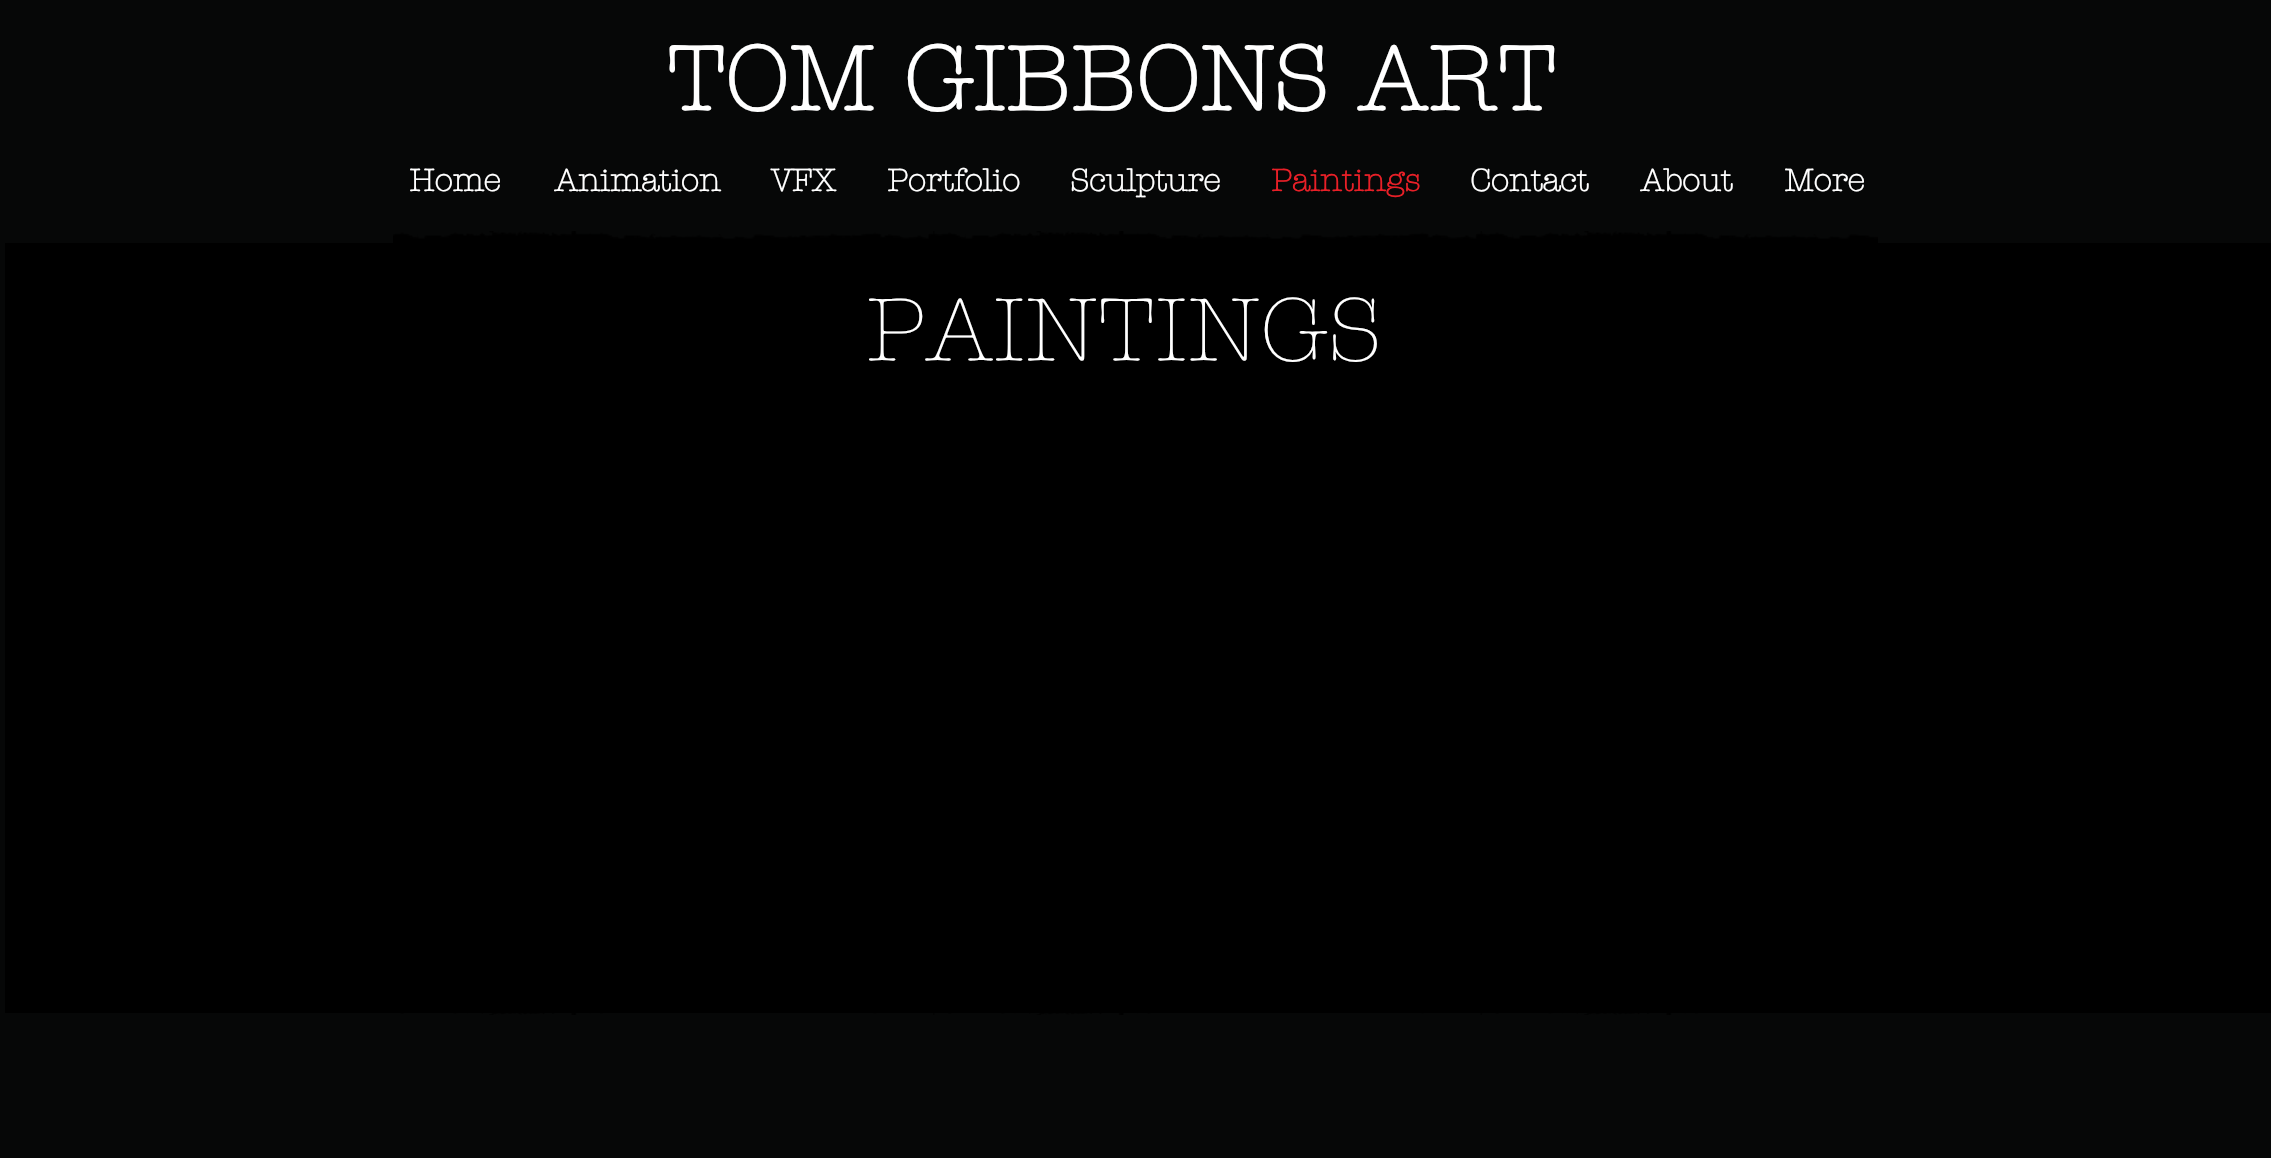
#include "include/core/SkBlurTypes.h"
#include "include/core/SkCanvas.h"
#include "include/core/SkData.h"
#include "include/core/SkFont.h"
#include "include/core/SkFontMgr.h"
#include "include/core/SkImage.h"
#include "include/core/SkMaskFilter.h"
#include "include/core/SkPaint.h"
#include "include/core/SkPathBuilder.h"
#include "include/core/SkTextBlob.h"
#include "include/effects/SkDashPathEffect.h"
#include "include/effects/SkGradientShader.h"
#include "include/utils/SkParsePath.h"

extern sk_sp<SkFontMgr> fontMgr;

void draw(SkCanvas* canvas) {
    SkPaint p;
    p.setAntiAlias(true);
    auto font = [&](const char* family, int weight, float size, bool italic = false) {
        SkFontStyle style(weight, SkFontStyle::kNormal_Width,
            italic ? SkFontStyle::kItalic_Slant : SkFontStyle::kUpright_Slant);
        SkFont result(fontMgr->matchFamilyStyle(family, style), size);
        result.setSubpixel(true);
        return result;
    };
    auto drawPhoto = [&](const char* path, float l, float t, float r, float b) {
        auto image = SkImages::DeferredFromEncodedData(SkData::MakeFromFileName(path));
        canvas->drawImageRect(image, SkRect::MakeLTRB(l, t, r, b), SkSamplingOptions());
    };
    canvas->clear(0xFF060707);
    auto font1 = font("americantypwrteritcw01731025", 700, 91.5f);
    p.setColor(0xFFFFFFFF);
    canvas->drawString("TOM GIBBONS ART", 666, 110, font1, p);
    auto font2 = font("americantypwrteritcw01731025", 700, 31.5f);
    {
        const struct { const char* s; float x, y; } items[] = {
            {"Home", 409, 191},
            {"Animation", 554, 191},
            {"VFX", 771, 191},
            {"Portfolio", 887, 191},
            {"Sculpture", 1070, 191},
        };
        for (auto [s, x, y] : items) {
            canvas->drawString(s, x, y, font2, p);
        }
    }
    p.setColor(0xFFE81F27);
    canvas->drawString("Paintings", 1271, 191, font2, p);
    p.setColor(0xFFFFFFFF);
    {
        const struct { const char* s; float x, y; } items[] = {
            {"Contact", 1470, 191},
            {"About", 1640, 191},
            {"More", 1784, 191},
        };
        for (auto [s, x, y] : items) {
            canvas->drawString(s, x, y, font2, p);
        }
    }
    drawPhoto("media/1.png", 393, 231, 1878, 243);
    drawPhoto("media/2.png", 400, 1013, 1815, 1015);
    p.setColor(0xFF000000);
    canvas->drawRect(SkRect::MakeLTRB(5, 243, 2271, 1013), p);
    auto font3 = font("americantypwrteritcw01731025", 300, 90);
    p.setColor(0xFFFFFFFF);
    canvas->drawString("PAINTINGS", 866, 360, font3, p);
}
